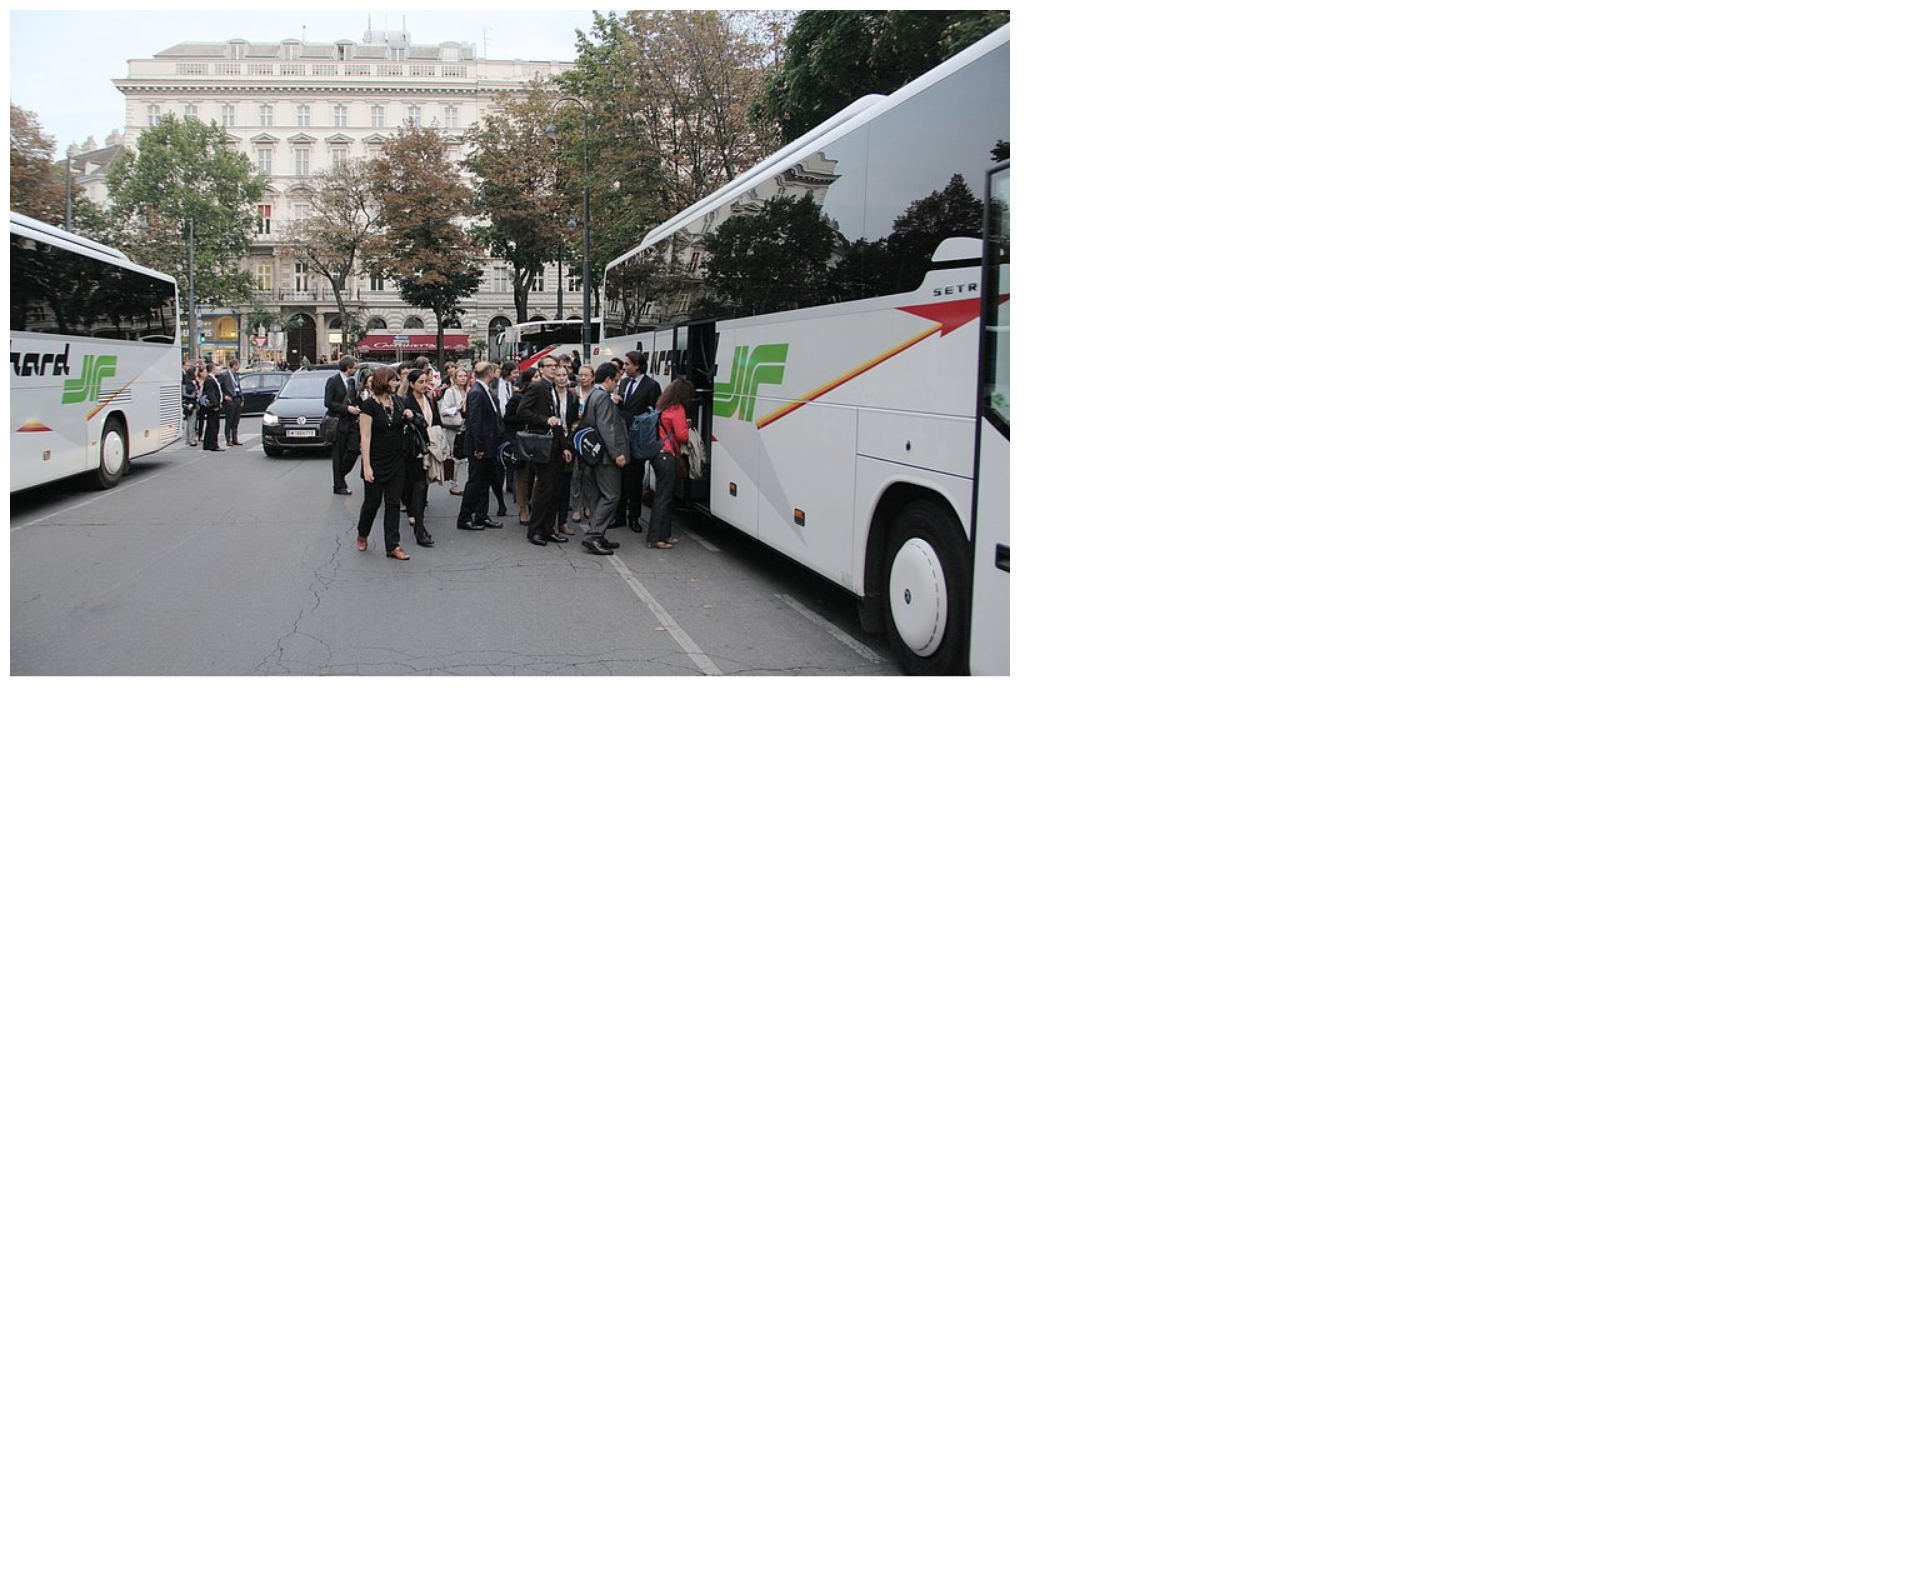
#include "include/core/SkBlurTypes.h"
#include "include/core/SkCanvas.h"
#include "include/core/SkData.h"
#include "include/core/SkFont.h"
#include "include/core/SkFontMgr.h"
#include "include/core/SkImage.h"
#include "include/core/SkMaskFilter.h"
#include "include/core/SkPaint.h"
#include "include/core/SkPathBuilder.h"
#include "include/core/SkTextBlob.h"
#include "include/effects/SkDashPathEffect.h"
#include "include/effects/SkGradientShader.h"
#include "include/utils/SkParsePath.h"

extern sk_sp<SkFontMgr> fontMgr;

void draw(SkCanvas* canvas) {
    SkPaint p;
    p.setAntiAlias(true);
    auto drawPhoto = [&](const char* path, float l, float t, float r, float b) {
        auto image = SkImages::DeferredFromEncodedData(SkData::MakeFromFileName(path));
        canvas->drawImageRect(image, SkRect::MakeLTRB(l, t, r, b), SkSamplingOptions());
    };
    canvas->clear(0xFFFFFFFF);
    drawPhoto("media/1.png", 10, 10, 1010, 677);
}
